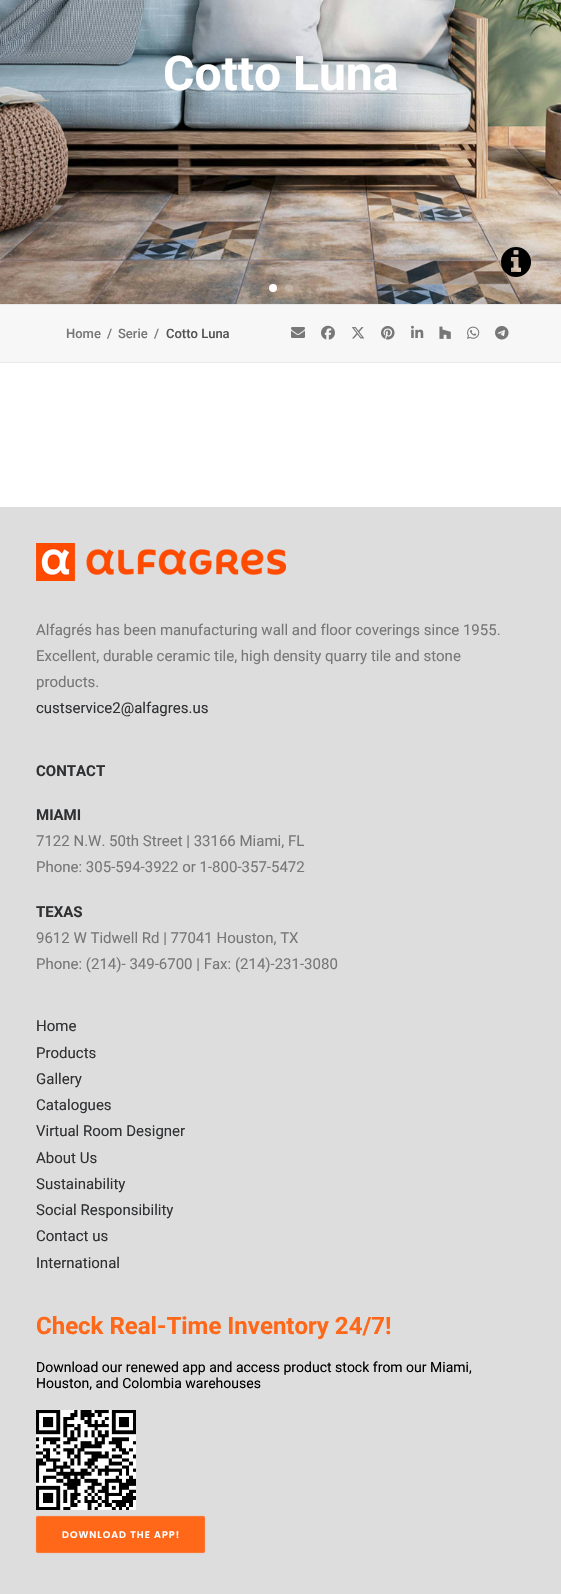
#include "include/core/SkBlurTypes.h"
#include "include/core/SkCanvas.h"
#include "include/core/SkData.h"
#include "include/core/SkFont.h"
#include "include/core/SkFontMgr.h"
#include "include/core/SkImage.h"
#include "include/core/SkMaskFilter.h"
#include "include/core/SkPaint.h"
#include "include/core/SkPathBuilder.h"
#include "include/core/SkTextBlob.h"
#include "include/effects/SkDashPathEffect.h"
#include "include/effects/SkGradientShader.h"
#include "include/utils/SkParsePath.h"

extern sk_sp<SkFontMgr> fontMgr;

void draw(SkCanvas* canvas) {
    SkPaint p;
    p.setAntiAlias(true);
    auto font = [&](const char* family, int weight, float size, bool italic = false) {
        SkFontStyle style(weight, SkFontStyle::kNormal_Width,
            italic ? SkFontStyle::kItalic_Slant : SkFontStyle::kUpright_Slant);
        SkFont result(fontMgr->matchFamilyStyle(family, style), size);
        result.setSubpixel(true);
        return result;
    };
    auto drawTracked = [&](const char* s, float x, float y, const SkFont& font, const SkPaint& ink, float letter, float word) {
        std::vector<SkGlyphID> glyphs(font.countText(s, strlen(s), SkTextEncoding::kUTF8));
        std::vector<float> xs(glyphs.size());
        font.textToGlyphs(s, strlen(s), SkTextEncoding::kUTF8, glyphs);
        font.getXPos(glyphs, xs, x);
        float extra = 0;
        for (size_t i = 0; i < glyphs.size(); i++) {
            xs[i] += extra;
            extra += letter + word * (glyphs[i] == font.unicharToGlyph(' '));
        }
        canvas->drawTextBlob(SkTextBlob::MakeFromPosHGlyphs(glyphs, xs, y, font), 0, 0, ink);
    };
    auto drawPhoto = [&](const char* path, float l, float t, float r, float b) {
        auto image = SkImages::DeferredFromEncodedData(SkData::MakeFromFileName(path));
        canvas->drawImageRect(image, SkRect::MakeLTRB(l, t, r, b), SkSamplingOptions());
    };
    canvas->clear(0xFFFFFFFF);
    drawPhoto("media/1.png", 0, 0, 561, 304);
    p.setColor(0xFFFFFFFF);
    canvas->drawCircle(273, 288, 4, p);
    p.setColor(0x33FFFFFF);
    canvas->drawCircle(289, 288, 4, p);
    auto font1 = font("Roboto", 700, 48);
    p.setColor(0xFFFFFFFF);
    canvas->drawString("Cotto Luna", 163, 90, font1, p);
    drawPhoto("media/2.png", 501, 247, 531, 277);
    {
        const struct { float l, t, r, b; SkColor color; } items[] = {
            {0, 305, 561, 362, 0xFFF7F7F7},
            {0, 304, 561, 305, 0xFFEAEAEA},
            {0, 362, 561, 363, 0xFFEAEAEA},
        };
        for (auto [l, t, r, b, color] : items) {
            p.setColor(color);
            canvas->drawRect(SkRect::MakeLTRB(l, t, r, b), p);
        }
    }
    auto font2 = font("Roboto", 500, 13);
    p.setColor(0xFF777777);
    {
        const struct { const char* s; float x, y; } items[] = {
            {"Home", 66, 338},
            {"/", 107, 338},
            {"Serie", 118, 338},
            {"/", 154, 338},
        };
        for (auto [s, x, y] : items) {
            canvas->drawString(s, x, y, font2, p);
        }
    }
    p.setColor(0xFF545454);
    canvas->drawString("Cotto Luna", 166, 338, font2, p);
    drawPhoto("media/3.png", 291, 327, 305, 338);
    drawPhoto("media/4.png", 321, 325, 335, 340);
    drawPhoto("media/5.png", 351, 327, 365, 339);
    drawPhoto("media/6.png", 381, 326, 395, 340);
    drawPhoto("media/7.png", 411, 325, 424, 338);
    drawPhoto("media/8.png", 439, 326, 451, 339);
    drawPhoto("media/9.png", 467, 326, 480, 339);
    drawPhoto("media/10.png", 495, 326, 509, 340);
    p.setColor(0xFFDDDDDD);
    canvas->drawRect(SkRect::MakeLTRB(0, 507, 561, 1594), p);
    drawPhoto("media/11.png", 36, 543, 286, 581);
    auto font3 = font("Roboto", 400, 15);
    p.setColor(0xFF777777);
    {
        const struct { const char* s; float x, y; } items[] = {
            {"Alfagrés has been manufacturing wall and floor coverings since 1955.", 36, 635},
            {"Excellent, durable ceramic tile, high density quarry tile and stone", 36, 661},
            {"products.", 36, 687},
        };
        for (auto [s, x, y] : items) {
            canvas->drawString(s, x, y, font3, p);
        }
    }
    p.setColor(0xFF303133);
    canvas->drawString("custservice2@alfagres.us", 36, 713, font3, p);
    auto font4 = font("Roboto", 700, 15);
    canvas->drawString("CONTACT", 36, 776, font4, p);
    canvas->drawString("MIAMI", 36, 820, font4, p);
    p.setColor(0xFF777777);
    canvas->drawString("7122 N.W. 50th Street | 33166 Miami, FL", 36, 846, font3, p);
    canvas->drawString("Phone: 305-594-3922 or 1-800-357-5472", 36, 872, font3, p);
    p.setColor(0xFF303133);
    canvas->drawString("TEXAS", 36, 917, font4, p);
    p.setColor(0xFF777777);
    canvas->drawString("9612 W Tidwell Rd | 77041 Houston, TX", 36, 943, font3, p);
    canvas->drawString("Phone: (214)- 349-6700 | Fax: (214)-231-3080", 36, 969, font3, p);
    p.setColor(0xFF303133);
    {
        const struct { const char* s; float x, y; } items[] = {
            {"Home", 36, 1031},
            {"Products", 36, 1058},
            {"Gallery", 36, 1084},
            {"Catalogues", 36, 1110},
            {"Virtual Room Designer", 36, 1136},
            {"About Us", 36, 1163},
            {"Sustainability", 36, 1189},
            {"Social Responsibility", 36, 1215},
            {"Contact us", 36, 1241},
            {"International", 36, 1268},
        };
        for (auto [s, x, y] : items) {
            canvas->drawString(s, x, y, font3, p);
        }
    }
    auto font5 = font("Roboto", 700, 24);
    p.setColor(0xFFFF6719);
    canvas->drawString("Check Real-Time Inventory 24/7!", 36, 1334, font5, p);
    auto font6 = font("Roboto", 400, 14);
    p.setColor(0xFF000000);
    canvas->drawString("Download our renewed app and access product stock from our Miami,", 36, 1372, font6, p);
    canvas->drawString("Houston, and Colombia warehouses", 36, 1388, font6, p);
    drawPhoto("media/12.png", 36, 1410, 136, 1510);
    p.setColor(0xFFFF6719);
    canvas->drawRoundRect(SkRect::MakeLTRB(36.4f, 1516.4f, 204.6f, 1552.6f), 1.1f, 1.1f, p);
    p.setStyle(SkPaint::kStroke_Style);
    p.setStrokeWidth(0.8f);
    canvas->drawRoundRect(SkRect::MakeLTRB(36.4f, 1516.4f, 204.6f, 1552.6f), 1.1f, 1.1f, p);
    auto font7 = font("Poppins", 600, 9.6f);
    p.setStyle(SkPaint::kFill_Style);
    p.setColor(0xFFFFFFFF);
    drawTracked("DOWNLOAD THE APP!", 62, 1538, font7, p, 1, 0);
}
